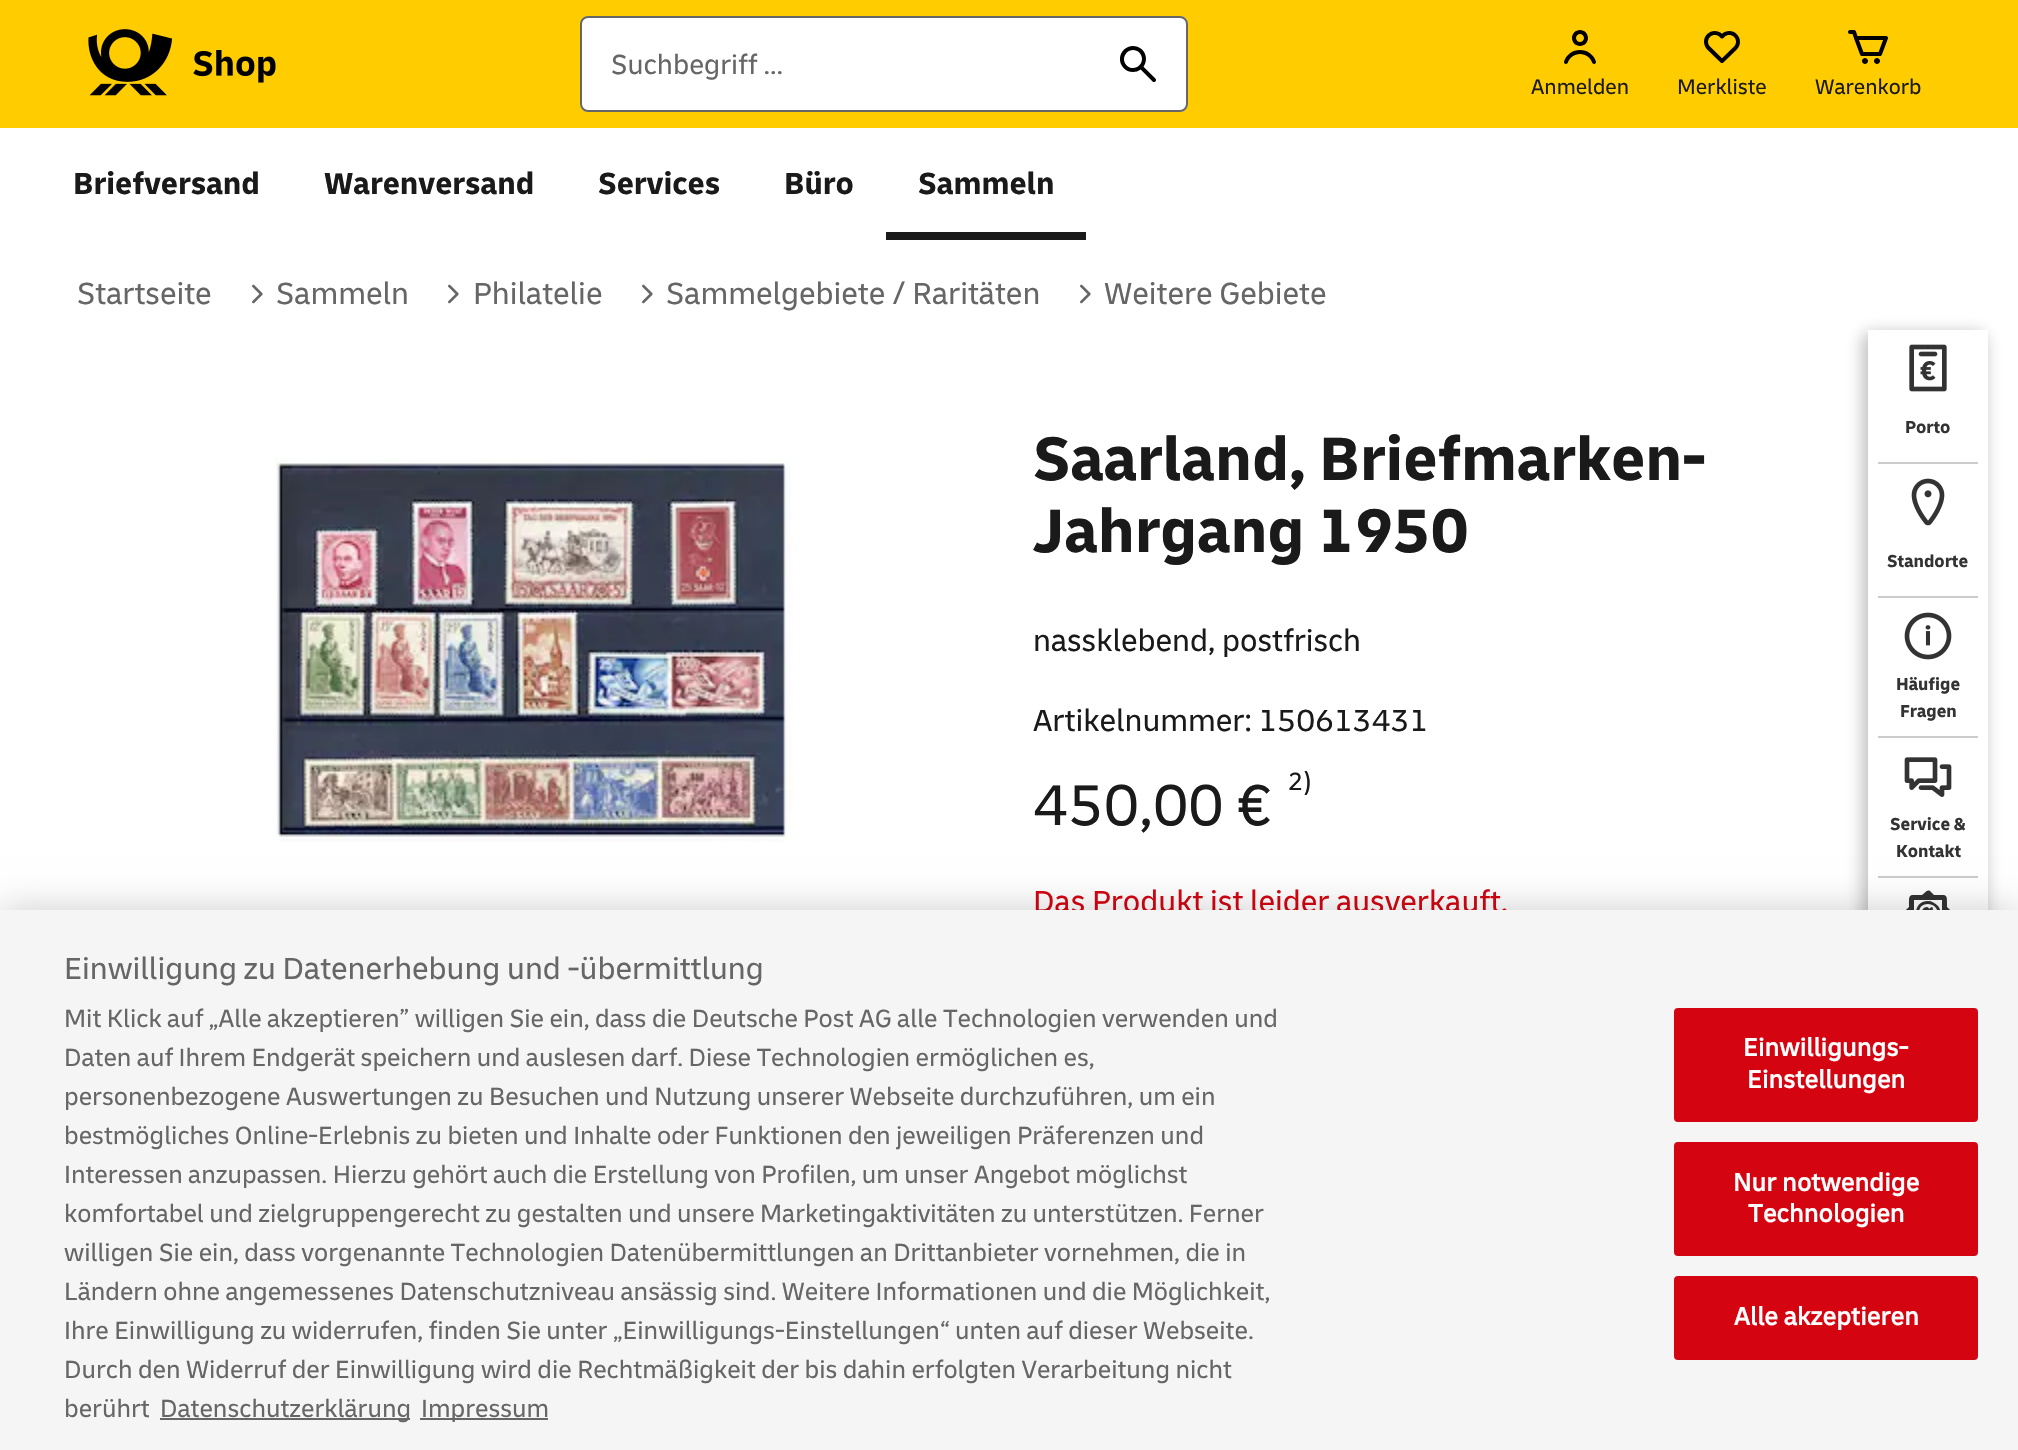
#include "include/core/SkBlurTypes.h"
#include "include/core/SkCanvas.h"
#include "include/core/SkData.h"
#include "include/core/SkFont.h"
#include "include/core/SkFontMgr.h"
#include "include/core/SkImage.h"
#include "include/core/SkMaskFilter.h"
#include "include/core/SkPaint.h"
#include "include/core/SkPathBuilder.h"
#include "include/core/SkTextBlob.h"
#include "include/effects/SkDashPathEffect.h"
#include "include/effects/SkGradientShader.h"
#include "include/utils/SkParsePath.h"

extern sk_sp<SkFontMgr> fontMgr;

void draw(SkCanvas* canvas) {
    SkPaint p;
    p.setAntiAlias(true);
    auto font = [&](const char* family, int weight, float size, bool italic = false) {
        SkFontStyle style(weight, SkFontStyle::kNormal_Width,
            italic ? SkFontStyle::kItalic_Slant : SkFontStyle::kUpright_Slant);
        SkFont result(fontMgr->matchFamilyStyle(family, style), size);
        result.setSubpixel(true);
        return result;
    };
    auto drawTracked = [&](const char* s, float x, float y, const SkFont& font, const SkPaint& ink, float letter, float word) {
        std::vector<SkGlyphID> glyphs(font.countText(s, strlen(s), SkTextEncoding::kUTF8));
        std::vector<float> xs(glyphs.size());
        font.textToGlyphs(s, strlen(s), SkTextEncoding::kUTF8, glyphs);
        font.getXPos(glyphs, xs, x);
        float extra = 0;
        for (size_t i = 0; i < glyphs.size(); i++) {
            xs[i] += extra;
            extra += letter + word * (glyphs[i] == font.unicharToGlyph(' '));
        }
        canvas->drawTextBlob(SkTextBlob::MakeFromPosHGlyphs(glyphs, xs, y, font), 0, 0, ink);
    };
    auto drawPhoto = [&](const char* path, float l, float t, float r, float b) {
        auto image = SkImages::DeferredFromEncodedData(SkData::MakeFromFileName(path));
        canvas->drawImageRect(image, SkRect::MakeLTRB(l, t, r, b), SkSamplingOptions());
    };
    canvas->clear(0xFFFFFFFF);
    p.setColor(0xFFFFCC00);
    canvas->drawRect(SkRect::MakeLTRB(0, 0, 2018, 128), p);
    drawPhoto("media/1.png", 88, 29, 276, 96);
    p.setColor(0xFFFFFFFF);
    canvas->drawRoundRect(SkRect::MakeLTRB(580, 16, 1188, 112), 8, 8, p);
    p.setStyle(SkPaint::kStroke_Style);
    p.setStrokeWidth(2);
    p.setColor(0x99000000);
    canvas->drawRoundRect(SkRect::MakeLTRB(581, 17, 1187, 111), 7, 7, p);
    auto font1 = font("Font", 400, 28.75f);
    p.setStyle(SkPaint::kFill_Style);
    p.setColor(0xFF666666);
    canvas->drawString("Suchbegriff ...", 611, 74, font1, p);
    drawPhoto("media/2.png", 1120, 46, 1156, 82);
    drawPhoto("media/3.png", 1564, 30, 1596, 64);
    auto font2 = font("Font", 400, 22);
    p.setColor(0xFF1A1A1A);
    canvas->drawString("Anmelden", 1531, 94, font2, p);
    drawPhoto("media/4.png", 1704, 31, 1740, 63);
    canvas->drawString("Merkliste", 1677, 94, font2, p);
    drawPhoto("media/5.png", 1848, 30, 1888, 64);
    canvas->drawString("Warenkorb", 1815, 94, font2, p);
    auto font3 = font("Font", 700, 32);
    {
        const struct { const char* s; float x, y; } items[] = {
            {"Briefversand", 73, 194},
            {"Warenversand", 324, 194},
            {"Services", 598, 194},
            {"Büro", 784, 194},
        };
        for (auto [s, x, y] : items) {
            canvas->drawString(s, x, y, font3, p);
        }
    }
    canvas->drawRect(SkRect::MakeLTRB(886, 232, 1086, 240), p);
    canvas->drawString("Sammeln", 918, 194, font3, p);
    auto font4 = font("Font", 400, 32);
    p.setColor(0xFF666666);
    canvas->drawString("Startseite", 77, 304, font4, p);
    drawPhoto("media/6.png", 252, 284, 263, 304);
    canvas->drawString("Sammeln", 276, 304, font4, p);
    drawPhoto("media/6.png", 448, 284, 459, 304);
    canvas->drawString("Philatelie", 473, 304, font4, p);
    drawPhoto("media/6.png", 642, 284, 653, 304);
    canvas->drawString("Sammelgebiete / Raritäten", 666, 304, font4, p);
    drawPhoto("media/6.png", 1080, 284, 1091, 304);
    canvas->drawString("Weitere Gebiete", 1104, 304, font4, p);
    drawPhoto("media/7.png", 275, 458, 793, 842);
    auto font5 = font("Font", 700, 64);
    p.setColor(0xFF1A1A1A);
    canvas->drawString("Saarland, Briefmarken-", 1033, 480, font5, p);
    canvas->drawString("Jahrgang 1950", 1033, 552, font5, p);
    canvas->drawString("nassklebend, postfrisch", 1033, 651, font4, p);
    canvas->drawString("Artikelnummer: 150613431", 1033, 731, font4, p);
    auto font6 = font("Font", 400, 60);
    canvas->drawString("450,00 €", 1033, 825, font6, p);
    auto font7 = font("Font", 400, 26);
    canvas->drawString("2)", 1288, 790, font7, p);
    p.setColor(0xFFD40511);
    canvas->drawString("Das Produkt ist leider ausverkauft.", 1033, 912, font4, p);
    p.setColor(0x4D333333);
    p.setMaskFilter(SkMaskFilter::MakeBlur(kNormal_SkBlurStyle, 8));
    canvas->drawRoundRect(SkRect::MakeLTRB(1862, 332, 1986, 1022), 10, 10, p);
    p.setMaskFilter(nullptr);
    p.setColor(0xFFFFFFFF);
    canvas->drawRect(SkRect::MakeLTRB(1868, 330, 1988, 910), p);
    drawPhoto("media/8.png", 1909, 344, 1947, 392);
    auto font8 = font("Font", 700, 18);
    p.setColor(0xFF333333);
    canvas->drawString("Porto", 1905, 433, font8, p);
    p.setColor(0xFFCCCCCC);
    canvas->drawRect(SkRect::MakeLTRB(1878, 462, 1978, 464), p);
    drawPhoto("media/9.png", 1911, 478, 1945, 526);
    p.setColor(0xFF333333);
    canvas->drawString("Standorte", 1887, 567, font8, p);
    p.setColor(0xFFCCCCCC);
    canvas->drawRect(SkRect::MakeLTRB(1878, 596, 1978, 598), p);
    drawPhoto("media/10.png", 1904, 612, 1952, 660);
    p.setColor(0xFF333333);
    canvas->drawString("Häufige", 1896, 690, font8, p);
    canvas->drawString("Fragen", 1900, 717, font8, p);
    p.setColor(0xFFCCCCCC);
    canvas->drawRect(SkRect::MakeLTRB(1878, 736, 1978, 738), p);
    drawPhoto("media/11.png", 1904, 757, 1952, 797);
    p.setColor(0xFF333333);
    canvas->drawString("Service &", 1890, 830, font8, p);
    canvas->drawString("Kontakt", 1896, 857, font8, p);
    p.setColor(0xFFCCCCCC);
    canvas->drawRect(SkRect::MakeLTRB(1878, 876, 1978, 878), p);
    p.setColor(0xFF333333);
    canvas->drawPath(SkPathBuilder(SkPathFillType::kEvenOdd).moveTo(1930, 891).cubicTo(1927, 889, 1924, 894, 1922, 895).cubicTo(1908, 895, 1909, 893, 1909, 907).cubicTo(1900, 916, 1902, 912, 1902, 927).cubicTo(1902, 929, 1901, 939, 1903, 941).cubicTo(1904, 943, 1915, 942, 1917, 942).lineTo(1952, 942).lineTo(1953, 941).cubicTo(1954, 939, 1954, 930, 1954, 927).cubicTo(1954, 912, 1956, 916, 1947, 907).cubicTo(1947, 893, 1948, 895, 1934, 895).close().moveTo(1942, 900).lineTo(1942, 921).lineTo(1928, 930).lineTo(1914, 921).lineTo(1914, 900).close().moveTo(1928, 901).cubicTo(1909, 901, 1914, 932, 1933, 924).lineTo(1934, 923).cubicTo(1935, 920, 1929, 923, 1928, 923).cubicTo(1926, 923, 1924, 922, 1922, 921).cubicTo(1920, 919, 1919, 916, 1919, 913).cubicTo(1919, 899, 1940, 903, 1937, 914).cubicTo(1937, 916, 1934, 918, 1933, 916).cubicTo(1932, 914, 1934, 908, 1932, 907).cubicTo(1931, 907, 1930, 908, 1929, 909).cubicTo(1929, 908, 1928, 907, 1927, 907).cubicTo(1920, 907, 1920, 919, 1926, 920).cubicTo(1928, 920, 1929, 919, 1930, 918).cubicTo(1934, 924, 1945, 915, 1938, 906).cubicTo(1935, 903, 1932, 901, 1928, 901).close().moveTo(1927, 911).lineTo(1929, 912).lineTo(1929, 915).cubicTo(1927, 920, 1923, 910, 1927, 911).close().moveTo(1909, 914).lineTo(1909, 917).lineTo(1907, 916).close().moveTo(1947, 914).lineTo(1949, 916).lineTo(1947, 917).close().moveTo(1949, 922).lineTo(1949, 937).lineTo(1907, 937).lineTo(1907, 922).lineTo(1924, 933).cubicTo(1926, 935, 1930, 935, 1932, 933).close().detach(), p);
    p.setColor(0x33000000);
    p.setMaskFilter(SkMaskFilter::MakeBlur(kNormal_SkBlurStyle, 18));
    canvas->drawRect(SkRect::MakeLTRB(0, 910, 2018, 1450), p);
    p.setMaskFilter(nullptr);
    p.setColor(0xFFF5F5F5);
    canvas->drawRect(SkRect::MakeLTRB(0, 910, 2018, 1450), p);
    p.setColor(0xFF666666);
    canvas->drawString("Einwilligung zu Datenerhebung und -übermittlung", 64, 979, font4, p);
    {
        const struct { const char* s; float x, y; } items[] = {
            {"Mit Klick auf „Alle akzeptieren” willigen Sie ein, dass die Deutsche Post AG alle Technologien verwenden und", 64, 1027},
            {"Daten auf Ihrem Endgerät speichern und auslesen darf. Diese Technologien ermöglichen es,", 64, 1066},
            {"personenbezogene Auswertungen zu Besuchen und Nutzung unserer Webseite durchzuführen, um ein", 64, 1105},
            {"bestmögliches Online-Erlebnis zu bieten und Inhalte oder Funktionen den jeweiligen Präferenzen und", 64, 1144},
            {"Interessen anzupassen. Hierzu gehört auch die Erstellung von Profilen, um unser Angebot möglichst", 64, 1183},
            {"komfortabel und zielgruppengerecht zu gestalten und unsere Marketingaktivitäten zu unterstützen. Ferner", 64, 1222},
            {"willigen Sie ein, dass vorgenannte Technologien Datenübermittlungen an Drittanbieter vornehmen, die in", 64, 1261},
            {"Ländern ohne angemessenes Datenschutzniveau ansässig sind. Weitere Informationen und die Möglichkeit,", 64, 1300},
            {"Ihre Einwilligung zu widerrufen, finden Sie unter „Einwilligungs-Einstellungen“ unten auf dieser Webseite.", 64, 1339},
            {"Durch den Widerruf der Einwilligung wird die Rechtmäßigkeit der bis dahin erfolgten Verarbeitung nicht", 64, 1378},
            {"berührt", 64, 1417},
        };
        for (auto [s, x, y] : items) {
            canvas->drawString(s, x, y, font7, p);
        }
    }
    canvas->drawRect(SkRect::MakeLTRB(160, 1418, 410, 1420), p);
    canvas->drawString("Datenschutzerklärung", 160, 1417, font7, p);
    canvas->drawRect(SkRect::MakeLTRB(420, 1418, 548, 1420), p);
    canvas->drawString("Impressum", 421, 1417, font7, p);
    p.setColor(0xFFD40511);
    canvas->drawRoundRect(SkRect::MakeLTRB(1675, 1009, 1977, 1121), 3, 3, p);
    p.setStyle(SkPaint::kStroke_Style);
    canvas->drawRoundRect(SkRect::MakeLTRB(1675, 1009, 1977, 1121), 3, 3, p);
    auto font9 = font("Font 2", 700, 26);
    p.setStyle(SkPaint::kFill_Style);
    p.setColor(0xFFFFFFFF);
    drawTracked("Einwilligungs-", 1743, 1056, font9, p, 0.25f, 0);
    drawTracked("Einstellungen", 1747, 1088, font9, p, 0.25f, 0);
    p.setColor(0xFFD40511);
    canvas->drawRoundRect(SkRect::MakeLTRB(1675, 1143, 1977, 1255), 3, 3, p);
    p.setStyle(SkPaint::kStroke_Style);
    canvas->drawRoundRect(SkRect::MakeLTRB(1675, 1143, 1977, 1255), 3, 3, p);
    p.setStyle(SkPaint::kFill_Style);
    p.setColor(0xFFFFFFFF);
    drawTracked("Nur notwendige", 1733, 1191, font9, p, 0.25f, 0);
    drawTracked("Technologien", 1748, 1222, font9, p, 0.25f, 0);
    p.setColor(0xFFD40511);
    canvas->drawRoundRect(SkRect::MakeLTRB(1675, 1277, 1977, 1359), 3, 3, p);
    p.setStyle(SkPaint::kStroke_Style);
    canvas->drawRoundRect(SkRect::MakeLTRB(1675, 1277, 1977, 1359), 3, 3, p);
    p.setStyle(SkPaint::kFill_Style);
    p.setColor(0xFFFFFFFF);
    drawTracked("Alle akzeptieren", 1734, 1325, font9, p, 0.25f, 0);
}
